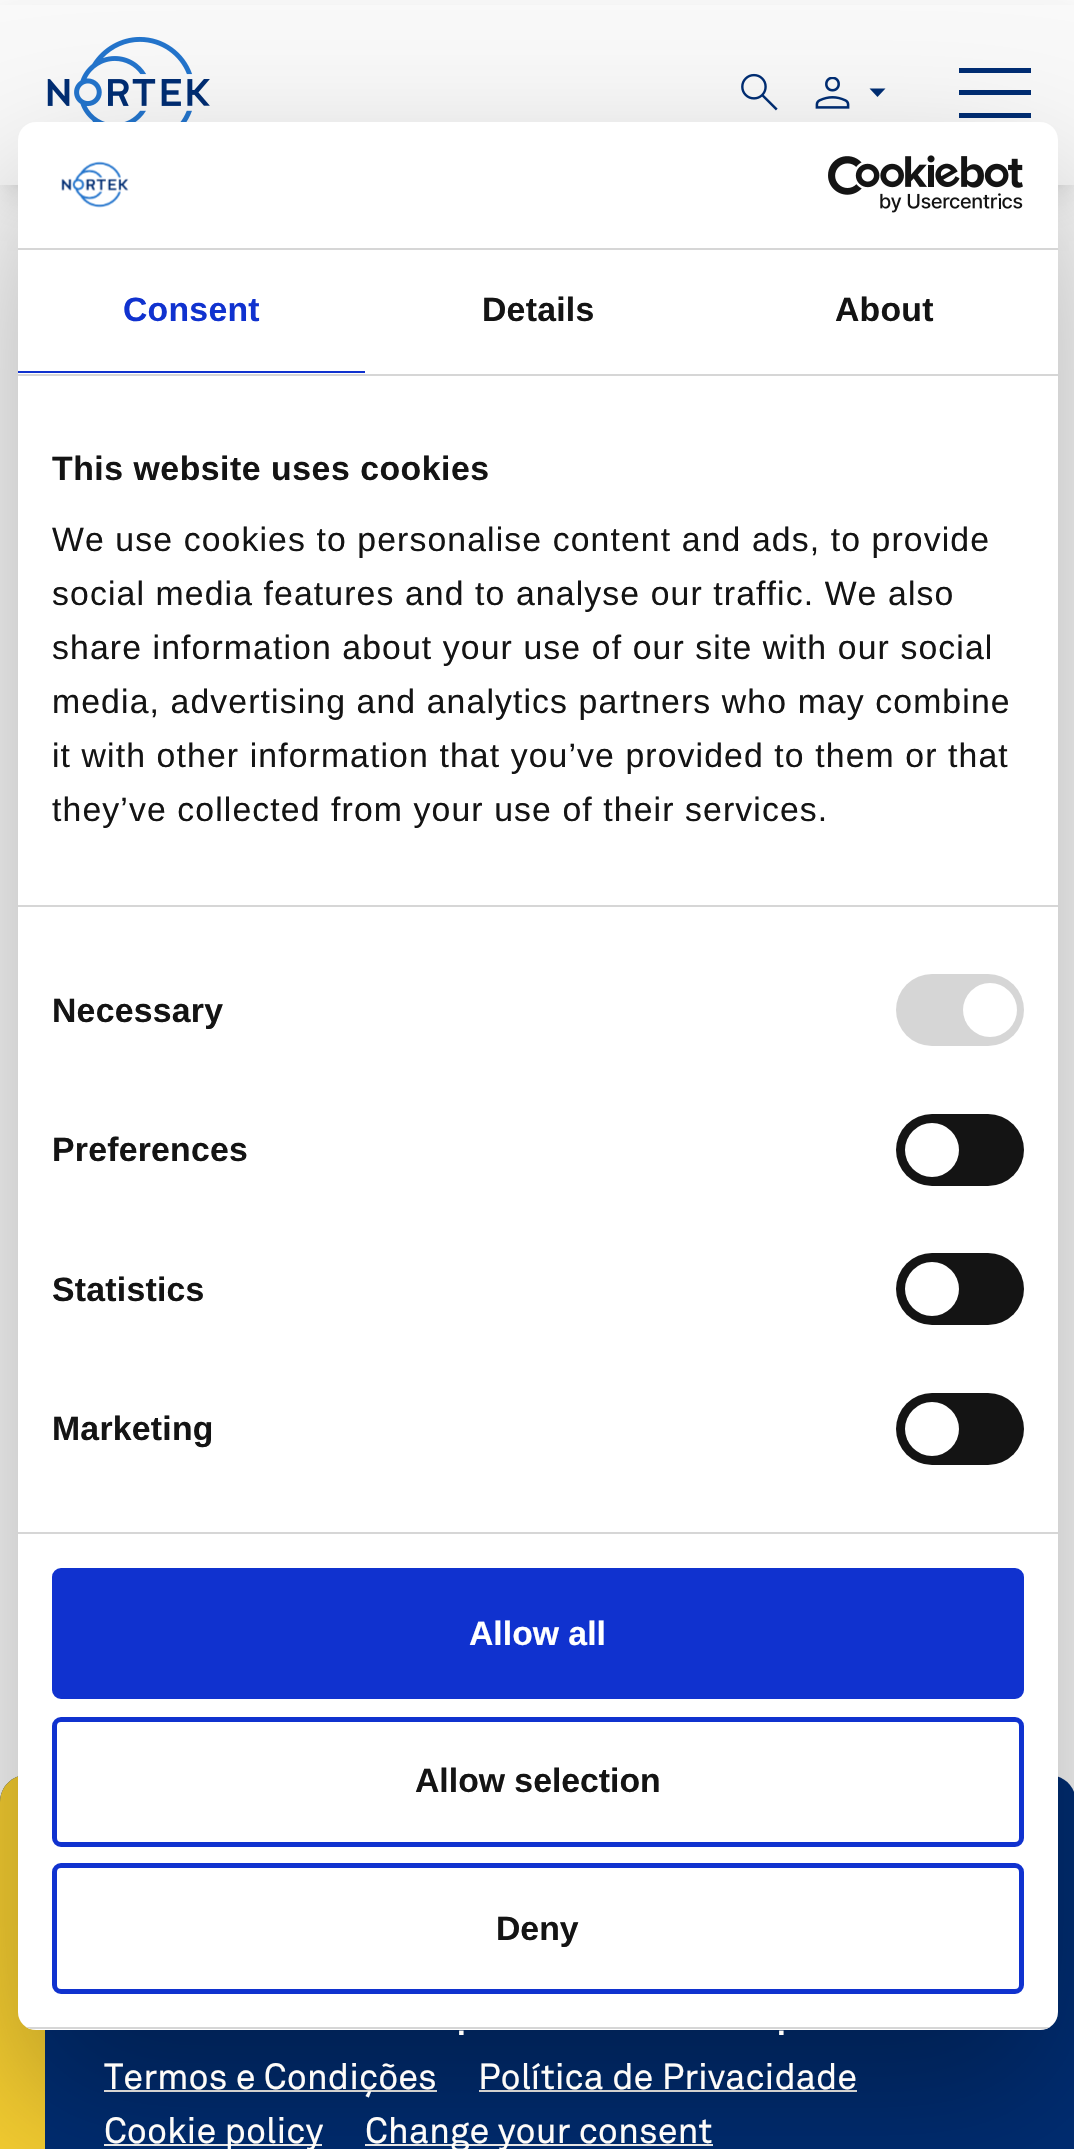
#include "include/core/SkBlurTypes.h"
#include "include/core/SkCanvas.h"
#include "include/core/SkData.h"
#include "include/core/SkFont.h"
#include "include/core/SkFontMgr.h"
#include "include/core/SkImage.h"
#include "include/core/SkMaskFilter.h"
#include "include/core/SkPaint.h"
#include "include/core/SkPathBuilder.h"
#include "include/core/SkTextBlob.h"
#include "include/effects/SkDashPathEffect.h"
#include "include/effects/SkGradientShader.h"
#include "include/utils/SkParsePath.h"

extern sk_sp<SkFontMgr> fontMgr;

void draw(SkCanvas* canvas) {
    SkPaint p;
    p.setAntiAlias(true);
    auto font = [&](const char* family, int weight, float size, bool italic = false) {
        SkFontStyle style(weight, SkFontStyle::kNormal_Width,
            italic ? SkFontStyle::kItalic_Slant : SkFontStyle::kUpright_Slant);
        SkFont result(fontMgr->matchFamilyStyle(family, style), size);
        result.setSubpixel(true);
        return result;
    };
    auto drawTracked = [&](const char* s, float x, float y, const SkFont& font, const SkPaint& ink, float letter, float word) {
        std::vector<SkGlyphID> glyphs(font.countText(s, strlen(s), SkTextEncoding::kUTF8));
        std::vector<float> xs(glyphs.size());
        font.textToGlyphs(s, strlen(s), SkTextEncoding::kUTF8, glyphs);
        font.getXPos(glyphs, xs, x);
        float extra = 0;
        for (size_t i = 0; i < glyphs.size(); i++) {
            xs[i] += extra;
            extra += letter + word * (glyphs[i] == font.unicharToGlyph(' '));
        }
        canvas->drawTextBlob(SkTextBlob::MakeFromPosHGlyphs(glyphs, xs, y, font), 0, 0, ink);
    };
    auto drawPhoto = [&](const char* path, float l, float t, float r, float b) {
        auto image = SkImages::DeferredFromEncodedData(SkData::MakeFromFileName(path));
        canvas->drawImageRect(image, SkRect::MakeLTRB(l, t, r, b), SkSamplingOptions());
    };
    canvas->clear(0xFFF9F9F9);
    p.setColor(0x1A000000);
    p.setMaskFilter(SkMaskFilter::MakeBlur(kNormal_SkBlurStyle, 7));
    canvas->drawRect(SkRect::MakeLTRB(9, 18, 1067, 185), p);
    p.setMaskFilter(nullptr);
    p.setMaskFilter(SkMaskFilter::MakeBlur(kNormal_SkBlurStyle, 17));
    canvas->drawRect(SkRect::MakeLTRB(7, 29, 1069, 200), p);
    p.setMaskFilter(nullptr);
    p.setColor(0xFFF9F9F9);
    canvas->drawRect(SkRect::MakeLTRB(0, 5, 1074, 185), p);
    drawPhoto("media/3.png", 47, 36, 210, 122);
    drawPhoto("media/4.png", 741, 73, 778, 111);
    drawPhoto("media/5.png", 815, 77, 850, 109);
    p.setColor(0xFF002D73);
    canvas->drawPath(SkPathBuilder().moveTo(877.5f, 97).lineTo(869.5f, 88.5f).lineTo(885.5f, 88.5f).close().detach(), p);
    {
        const struct { float l, t, r, b; SkColor color; } items[] = {
            {959, 68, 1031, 73, 0xFF002D73},
            {959, 90, 1031, 95, 0xFF002D73},
            {959, 113, 1031, 118, 0xFF002D73},
        };
        for (auto [l, t, r, b, color] : items) {
            p.setColor(color);
            canvas->drawRect(SkRect::MakeLTRB(l, t, r, b), p);
        }
    }
    canvas->drawPath(SkPathBuilder().moveTo(27, 1775).lineTo(1049, 1775).cubicTo(1064, 1775, 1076, 1787, 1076, 1802).lineTo(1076, 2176).lineTo(0, 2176).lineTo(0, 1802).cubicTo(0, 1787, 12, 1775, 27, 1775).close().detach(), p);
    p.setColor(0xFFF7CF31);
    canvas->drawPath(SkPathBuilder().moveTo(27, 1775).lineTo(45, 1775).lineTo(45, 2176).lineTo(0, 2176).lineTo(0, 1802).cubicTo(0, 1787, 12, 1775, 27, 1775).close().detach(), p);
    {
        const struct { float l, t, r, b; SkColor color; } items[] = {
            {104, 2090, 437, 2092, 0xFFFEFCF9},
            {479, 2090, 857, 2092, 0xFFFEFCF9},
            {104, 2144, 322, 2146, 0xFFFEFCF9},
            {365, 2144, 713, 2146, 0xFFFEFCF9},
        };
        for (auto [l, t, r, b, color] : items) {
            p.setColor(color);
            canvas->drawRect(SkRect::MakeLTRB(l, t, r, b), p);
        }
    }
    p.setColor(0x4D000000);
    p.setMaskFilter(SkMaskFilter::MakeBlur(kNormal_SkBlurStyle, 76.5f));
    canvas->drawRoundRect(SkRect::MakeLTRB(18, 194, 1058, 2102), 18, 18, p);
    p.setMaskFilter(nullptr);
    p.setColor(0xFFFFFFFF);
    canvas->drawRoundRect(SkRect::MakeLTRB(18, 122, 1058, 2030), 18, 18, p);
    p.setColor(0xFFD6D6D6);
    canvas->drawRect(SkRect::MakeLTRB(18, 248, 1058, 250), p);
    drawPhoto("media/1.png", 61, 161, 129, 208);
    drawPhoto("media/2.png", 828, 155, 1023, 213);
    canvas->drawRect(SkRect::MakeLTRB(18, 374, 1058, 376), p);
    p.setColor(0xFF1032CF);
    canvas->drawRect(SkRect::MakeLTRB(18, 371, 365, 373), p);
    auto font1 = font("Liberation Sans", 700, 33.75f);
    drawTracked("Consent", 123, 321, font1, p, 0.25f, 0);
    p.setColor(0xFF141414);
    drawTracked("Details", 482, 321, font1, p, 0.25f, 0);
    drawTracked("About", 835, 321, font1, p, 0.25f, 0);
    p.setColor(0xFFD6D6D6);
    canvas->drawRect(SkRect::MakeLTRB(18, 905, 1058, 907), p);
    p.setColor(0xFF141414);
    drawTracked("This website uses cookies", 52, 480, font1, p, 0.55f, 0);
    auto font2 = font("Liberation Sans", 400, 33.75f);
    {
        const struct { const char* s; float x, y; } items[] = {
            {"We use cookies to personalise content and ads, to provide", 52, 551},
            {"social media features and to analyse our traffic. We also", 52, 605},
            {"share information about your use of our site with our social", 52, 659},
            {"media, advertising and analytics partners who may combine", 52, 713},
            {"it with other information that you’ve provided to them or that", 52, 767},
            {"they’ve collected from your use of their services.", 52, 821},
        };
        for (auto [s, x, y] : items) {
            drawTracked(s, x, y, font2, p, 1.12f, 0);
        }
    }
    p.setColor(0xFFD6D6D6);
    canvas->drawRect(SkRect::MakeLTRB(18, 1532, 1058, 1534), p);
    p.setColor(0xFF141414);
    drawTracked("Necessary", 52, 1022, font1, p, 0.25f, 0);
    p.setColor(0xFFD6D6D6);
    canvas->drawRoundRect(SkRect::MakeLTRB(896, 974, 1024, 1046), 36, 36, p);
    p.setColor(0xFFFFFFFF);
    canvas->drawCircle(990, 1010, 27, p);
    p.setColor(0xFF141414);
    drawTracked("Preferences", 52, 1161, font1, p, 0.25f, 0);
    canvas->drawRoundRect(SkRect::MakeLTRB(896, 1114, 1024, 1186), 36, 36, p);
    p.setColor(0xFFFFFFFF);
    canvas->drawCircle(932, 1150, 27, p);
    p.setColor(0xFF141414);
    drawTracked("Statistics", 52, 1301, font1, p, 0.25f, 0);
    canvas->drawRoundRect(SkRect::MakeLTRB(896, 1253, 1024, 1325), 36, 36, p);
    p.setColor(0xFFFFFFFF);
    canvas->drawCircle(932, 1289, 27, p);
    p.setColor(0xFF141414);
    drawTracked("Marketing", 52, 1440, font1, p, 0.25f, 0);
    canvas->drawRoundRect(SkRect::MakeLTRB(896, 1393, 1024, 1465), 36, 36, p);
    p.setColor(0xFFFFFFFF);
    canvas->drawCircle(932, 1429, 27, p);
    canvas->save();
    canvas->clipPath(SkPathBuilder().moveTo(36, 122).lineTo(1040, 122).cubicTo(1050, 122, 1058, 130, 1058, 140).lineTo(1058, 2012).cubicTo(1058, 2022, 1050, 2030, 1040, 2030).lineTo(36, 2030).cubicTo(26, 2030, 18, 2022, 18, 2012).lineTo(18, 140).cubicTo(18, 130, 26, 122, 36, 122).close().detach(), true);
    p.setColor(0xFFD6D6D6);
    canvas->drawRect(SkRect::MakeLTRB(18, 2027, 1058, 2029), p);
    canvas->restore();
    p.setColor(0xFF1032CF);
    canvas->drawRoundRect(SkRect::MakeLTRB(54.5f, 1570.5f, 1021.5f, 1696.5f), 6.5f, 6.5f, p);
    p.setStyle(SkPaint::kStroke_Style);
    p.setStrokeWidth(5);
    canvas->drawRoundRect(SkRect::MakeLTRB(54.5f, 1570.5f, 1021.5f, 1696.5f), 6.5f, 6.5f, p);
    p.setStyle(SkPaint::kFill_Style);
    p.setColor(0xFFFFFFFF);
    canvas->drawString("Allow all", 469, 1645, font1, p);
    p.setStyle(SkPaint::kStroke_Style);
    p.setColor(0xFF1032CF);
    canvas->drawRoundRect(SkRect::MakeLTRB(54.5f, 1719.5f, 1021.5f, 1844.5f), 6.5f, 6.5f, p);
    p.setStyle(SkPaint::kFill_Style);
    p.setColor(0xFF141414);
    canvas->drawString("Allow selection", 415, 1792, font1, p);
    p.setStyle(SkPaint::kStroke_Style);
    p.setColor(0xFF1032CF);
    canvas->drawRoundRect(SkRect::MakeLTRB(54.5f, 1865.5f, 1021.5f, 1991.5f), 6.5f, 6.5f, p);
    p.setStyle(SkPaint::kFill_Style);
    p.setColor(0xFF141414);
    canvas->drawString("Deny", 496, 1940, font1, p);
    auto font3 = font("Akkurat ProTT", 400, 36);
    p.setColor(0xFFFEFCF9);
    {
        const struct { const char* s; float x, y; } items[] = {
            {".", 456, 2035},
            {".", 776, 2035},
            {"Termos e Condições", 104, 2089},
            {"Política de Privacidade", 478, 2089},
            {"Cookie policy", 104, 2143},
            {"Change your consent", 365, 2143},
        };
        for (auto [s, x, y] : items) {
            canvas->drawString(s, x, y, font3, p);
        }
    }
}
